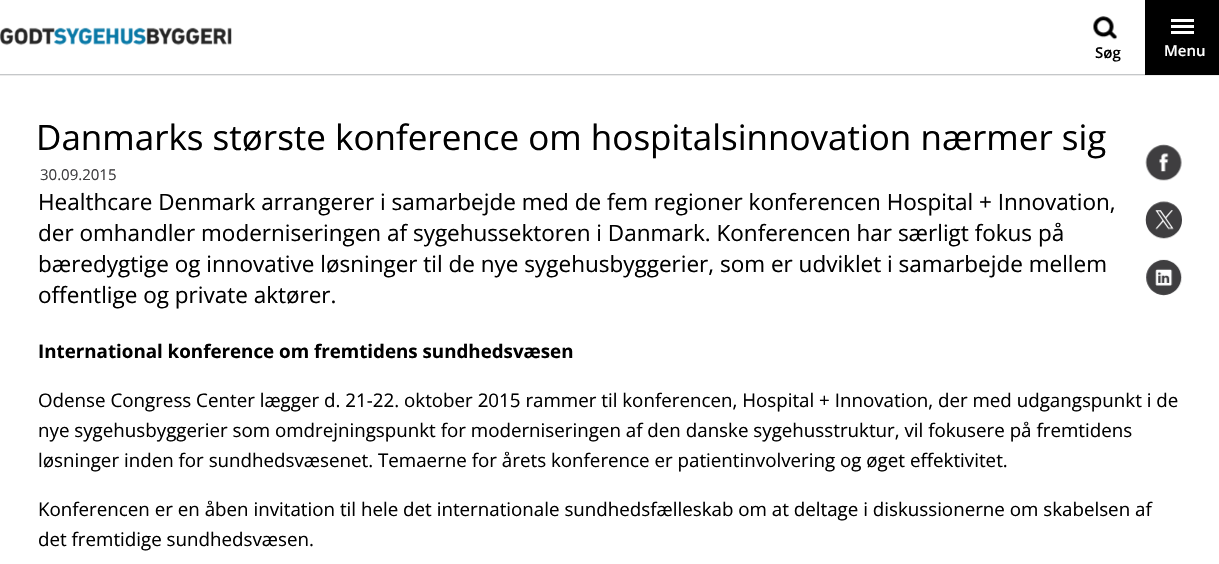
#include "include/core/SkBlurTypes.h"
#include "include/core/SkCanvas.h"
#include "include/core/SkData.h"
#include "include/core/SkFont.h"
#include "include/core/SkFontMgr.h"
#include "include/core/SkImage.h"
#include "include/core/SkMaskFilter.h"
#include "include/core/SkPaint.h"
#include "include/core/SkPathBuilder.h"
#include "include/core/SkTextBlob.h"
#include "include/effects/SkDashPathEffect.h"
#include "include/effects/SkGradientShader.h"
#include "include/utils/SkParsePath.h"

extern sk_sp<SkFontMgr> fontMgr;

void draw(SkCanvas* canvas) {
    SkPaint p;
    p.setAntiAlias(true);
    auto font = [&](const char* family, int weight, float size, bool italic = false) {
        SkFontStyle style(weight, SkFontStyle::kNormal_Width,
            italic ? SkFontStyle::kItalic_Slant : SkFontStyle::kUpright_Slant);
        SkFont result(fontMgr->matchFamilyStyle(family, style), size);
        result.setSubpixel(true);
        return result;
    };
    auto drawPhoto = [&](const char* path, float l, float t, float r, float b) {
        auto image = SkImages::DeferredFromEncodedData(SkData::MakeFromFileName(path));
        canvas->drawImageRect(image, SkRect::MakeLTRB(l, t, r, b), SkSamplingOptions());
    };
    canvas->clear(0xFFFFFFFF);
    p.setColor(0xFFC5C7C9);
    canvas->drawRect(SkRect::MakeLTRB(0, 74, 1145, 75), p);
    drawPhoto("media/1.png", 0, 27, 232, 46);
    drawPhoto("media/2.png", 1093, 16, 1118, 40);
    auto font1 = font("Open Sans", 600, 15);
    p.setColor(0xFF000000);
    canvas->drawString("Søg", 1095, 58, font1, p);
    {
        const struct { float l, t, r, b; SkColor color; } items[] = {
            {1145, 0, 1219, 75, 0xFF000000},
            {1171, 19, 1194, 22, 0xFFFFFFFF},
            {1171, 25, 1194, 28, 0xFFFFFFFF},
            {1171, 31, 1194, 34, 0xFFFFFFFF},
        };
        for (auto [l, t, r, b, color] : items) {
            p.setColor(color);
            canvas->drawRect(SkRect::MakeLTRB(l, t, r, b), p);
        }
    }
    canvas->drawString("Menu", 1164, 56, font1, p);
    p.setColor(0xFFECECEC);
    canvas->drawRect(SkRect::MakeLTRB(0, 75, 1219, 76), p);
    auto font2 = font("Open Sans", 400, 35);
    p.setColor(0xFF000000);
    canvas->drawString("Danmarks største konference om hospitalsinnovation nærmer sig", 36, 150, font2, p);
    auto font3 = font("Open Sans", 400, 15);
    p.setColor(0xFF3F3E40);
    canvas->drawString("30.09.2015", 40, 180, font3, p);
    auto font4 = font("Open Sans", 400, 22.5f);
    p.setColor(0xFF000000);
    {
        const struct { const char* s; float x, y; } items[] = {
            {"Healthcare Denmark arrangerer i samarbejde med de fem regioner konferencen Hospital + Innovation,", 38, 210},
            {"der omhandler moderniseringen af sygehussektoren i Danmark. Konferencen har særligt fokus på", 38, 241},
            {"bæredygtige og innovative løsninger til de nye sygehusbyggerier, som er udviklet i samarbejde mellem", 38, 272},
            {"offentlige og private aktører.", 38, 303},
        };
        for (auto [s, x, y] : items) {
            canvas->drawString(s, x, y, font4, p);
        }
    }
    auto font5 = font("Open Sans", 700, 18.75f);
    canvas->drawString("International konference om fremtidens sundhedsvæsen", 38, 358, font5, p);
    auto font6 = font("Open Sans", 400, 18.75f);
    {
        const struct { const char* s; float x, y; } items[] = {
            {"Odense Congress Center lægger d. 21-22. oktober 2015 rammer til konferencen, Hospital + Innovation, der med udgangspunkt i de", 38, 407},
            {"nye sygehusbyggerier som omdrejningspunkt for moderniseringen af den danske sygehusstruktur, vil fokusere på fremtidens", 38, 437},
            {"løsninger inden for sundhedsvæsenet. Temaerne for årets konference er patientinvolvering og øget effektivitet.", 38, 467},
            {"Konferencen er en åben invitation til hele det internationale sundhedsfælleskab om at deltage i diskussionerne om skabelsen af", 38, 516},
            {"det fremtidige sundhedsvæsen.", 38, 546},
        };
        for (auto [s, x, y] : items) {
            canvas->drawString(s, x, y, font6, p);
        }
    }
    drawPhoto("media/3.png", 1145, 144, 1182, 181);
    drawPhoto("media/4.png", 1145, 201, 1182, 239);
    drawPhoto("media/5.png", 1146, 259, 1182, 296);
}
